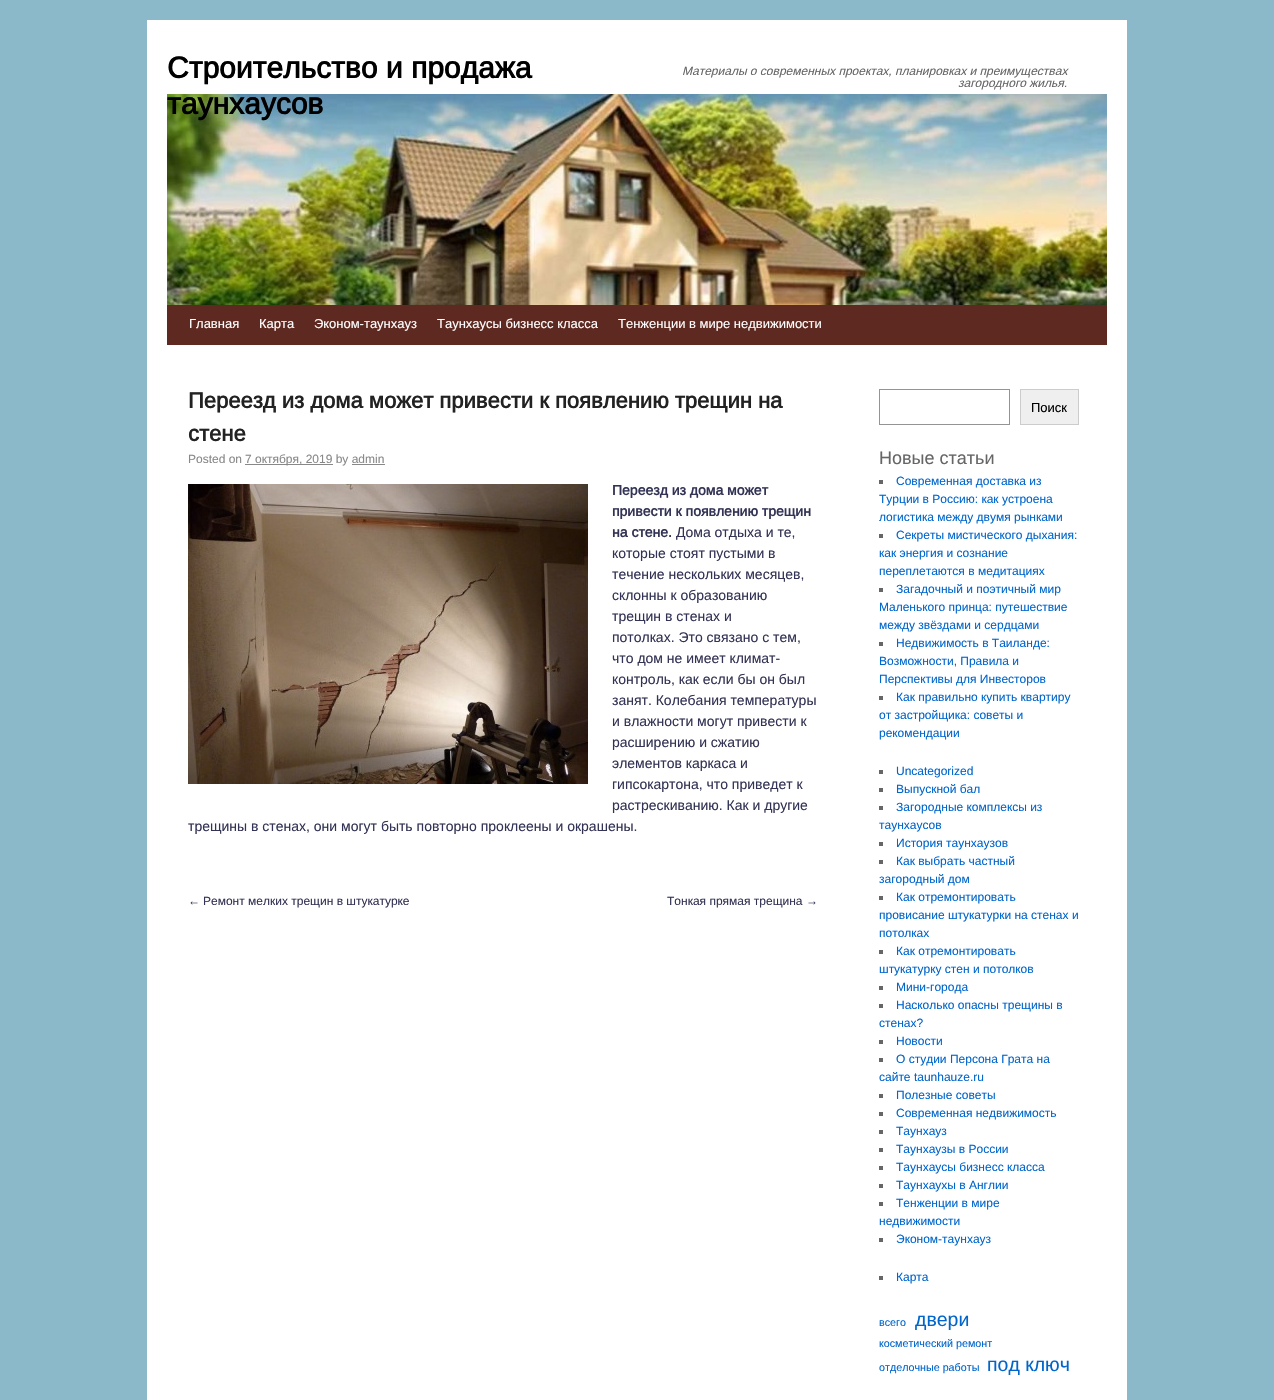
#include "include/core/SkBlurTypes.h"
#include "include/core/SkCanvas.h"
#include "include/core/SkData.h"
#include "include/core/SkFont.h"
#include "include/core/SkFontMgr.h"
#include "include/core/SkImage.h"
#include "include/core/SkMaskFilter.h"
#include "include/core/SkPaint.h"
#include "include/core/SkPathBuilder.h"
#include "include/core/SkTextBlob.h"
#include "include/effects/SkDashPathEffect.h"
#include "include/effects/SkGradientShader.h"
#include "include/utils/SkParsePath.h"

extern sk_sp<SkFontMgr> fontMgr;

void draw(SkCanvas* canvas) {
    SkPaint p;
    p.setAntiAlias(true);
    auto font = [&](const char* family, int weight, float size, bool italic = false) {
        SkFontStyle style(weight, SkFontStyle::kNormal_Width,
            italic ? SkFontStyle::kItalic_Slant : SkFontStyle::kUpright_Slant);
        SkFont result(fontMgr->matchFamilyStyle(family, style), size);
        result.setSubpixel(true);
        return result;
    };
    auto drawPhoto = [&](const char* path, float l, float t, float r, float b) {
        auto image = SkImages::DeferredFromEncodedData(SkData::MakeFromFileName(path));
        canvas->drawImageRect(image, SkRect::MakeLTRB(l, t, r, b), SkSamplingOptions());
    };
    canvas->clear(0xFF8BB9C9);
    p.setColor(0xFFFFFFFF);
    canvas->drawRect(SkRect::MakeLTRB(147, 20, 1127, 1400), p);
    drawPhoto("media/1.png", 167, 94, 1107, 305);
    auto font1 = font("Arimo", 700, 30);
    p.setColor(0xFF000000);
    canvas->drawString("Строительство и продажа", 167, 78, font1, p);
    canvas->drawString("таунхаусов", 167, 114, font1, p);
    auto font2 = font("Arimo", 400, 12, true);
    p.setColor(0xFF666666);
    canvas->drawString("Материалы о современных проектах, планировках и преимуществах", 682, 75, font2, p);
    canvas->drawString("загородного жилья.", 958, 87, font2, p);
    p.setColor(0xFF5E2920);
    canvas->drawRect(SkRect::MakeLTRB(167, 305, 1107, 345), p);
    auto font3 = font("Arimo", 400, 13);
    p.setColor(0xFFFFFFFF);
    {
        const struct { const char* s; float x, y; } items[] = {
            {"Главная", 189, 328},
            {"Карта", 259, 328},
            {"Эконом-таунхауз", 314, 328},
            {"Таунхаусы бизнесс класса", 437, 328},
            {"Тенженции в мире недвижимости", 618, 328},
        };
        for (auto [s, x, y] : items) {
            canvas->drawString(s, x, y, font3, p);
        }
    }
    auto font4 = font("Arimo", 700, 22);
    p.setColor(0xFF222222);
    canvas->drawString("Переезд из дома может привести к появлению трещин на", 188, 408, font4, p);
    canvas->drawString("стене", 188, 441, font4, p);
    auto font5 = font("Arimo", 400, 12);
    p.setColor(0xFF888888);
    canvas->drawString("Posted on", 188, 463, font5, p);
    canvas->drawRect(SkRect::MakeLTRB(245, 464, 333, 465), p);
    canvas->drawString("7 октября, 2019 by admin", 245, 463, font5, p);
    canvas->drawRect(SkRect::MakeLTRB(352, 464, 385, 465), p);
    drawPhoto("media/2.png", 188, 484, 588, 784);
    auto font6 = font("Arimo", 700, 14);
    p.setColor(0xFF333355);
    {
        const struct { const char* s; float x, y; } items[] = {
            {"Переезд из дома может", 612, 495},
            {"привести к появлению трещин", 612, 516},
            {"на стене.", 612, 537},
        };
        for (auto [s, x, y] : items) {
            canvas->drawString(s, x, y, font6, p);
        }
    }
    auto font7 = font("Arimo", 400, 14);
    {
        const struct { const char* s; float x, y; } items[] = {
            {"Дома отдыха и те,", 676, 537},
            {"которые стоят пустыми в", 612, 558},
            {"течение нескольких месяцев,", 612, 579},
            {"склонны к образованию", 612, 600},
            {"трещин в стенах и", 612, 621},
            {"потолках. Это связано с тем,", 612, 642},
            {"что дом не имеет климат-", 612, 663},
            {"контроль, как если бы он был", 612, 684},
            {"занят. Колебания температуры", 612, 705},
            {"и влажности могут привести к", 612, 726},
            {"расширению и сжатию", 612, 747},
            {"элементов каркаса и", 612, 768},
            {"гипсокартона, что приведет к", 612, 789},
            {"растрескиванию. Как и другие", 612, 810},
            {"трещины в стенах, они могут быть повторно проклеены и окрашены.", 188, 831},
        };
        for (auto [s, x, y] : items) {
            canvas->drawString(s, x, y, font7, p);
        }
    }
    auto font8 = font("Liberation Sans", 400, 12);
    canvas->drawString("←", 188, 905, font8, p);
    canvas->drawString("Ремонт мелких трещин в штукатурке", 203, 905, font5, p);
    canvas->drawString("Тонкая прямая трещина", 667, 905, font5, p);
    canvas->drawString("→", 806, 905, font8, p);
    p.setStyle(SkPaint::kStroke_Style);
    p.setStrokeWidth(1);
    p.setColor(0xFF949494);
    canvas->drawRect(SkRect::MakeLTRB(879.5f, 389.5f, 1009.5f, 424.5f), p);
    p.setStyle(SkPaint::kFill_Style);
    p.setColor(0xFFEFEFEF);
    canvas->drawRect(SkRect::MakeLTRB(1020.5f, 389.5f, 1078.5f, 424.5f), p);
    p.setStyle(SkPaint::kStroke_Style);
    p.setColor(0xFFCCCCCC);
    canvas->drawRect(SkRect::MakeLTRB(1020.5f, 389.5f, 1078.5f, 424.5f), p);
    auto font9 = font("Liberation Sans", 400, 13);
    p.setStyle(SkPaint::kFill_Style);
    p.setColor(0xFF000000);
    canvas->drawString("Поиск", 1031, 412, font9, p);
    auto font10 = font("Arimo", 400, 18);
    p.setColor(0xFF666666);
    canvas->drawString("Новые статьи", 879, 464, font10, p);
    canvas->drawRect(SkRect::MakeLTRB(879, 480, 883, 484), p);
    p.setColor(0xFF0066CC);
    {
        const struct { const char* s; float x, y; } items[] = {
            {"Современная доставка из", 896, 485},
            {"Турции в Россию: как устроена", 879, 503},
            {"логистика между двумя рынками", 879, 521},
        };
        for (auto [s, x, y] : items) {
            canvas->drawString(s, x, y, font5, p);
        }
    }
    p.setColor(0xFF666666);
    canvas->drawRect(SkRect::MakeLTRB(879, 534, 883, 538), p);
    p.setColor(0xFF0066CC);
    {
        const struct { const char* s; float x, y; } items[] = {
            {"Секреты мистического дыхания:", 896, 539},
            {"как энергия и сознание", 879, 557},
            {"переплетаются в медитациях", 879, 575},
        };
        for (auto [s, x, y] : items) {
            canvas->drawString(s, x, y, font5, p);
        }
    }
    p.setColor(0xFF666666);
    canvas->drawRect(SkRect::MakeLTRB(879, 588, 883, 592), p);
    p.setColor(0xFF0066CC);
    {
        const struct { const char* s; float x, y; } items[] = {
            {"Загадочный и поэтичный мир", 896, 593},
            {"Маленького принца: путешествие", 879, 611},
            {"между звёздами и сердцами", 879, 629},
        };
        for (auto [s, x, y] : items) {
            canvas->drawString(s, x, y, font5, p);
        }
    }
    p.setColor(0xFF666666);
    canvas->drawRect(SkRect::MakeLTRB(879, 642, 883, 646), p);
    p.setColor(0xFF0066CC);
    {
        const struct { const char* s; float x, y; } items[] = {
            {"Недвижимость в Таиланде:", 896, 647},
            {"Возможности, Правила и", 879, 665},
            {"Перспективы для Инвесторов", 879, 683},
        };
        for (auto [s, x, y] : items) {
            canvas->drawString(s, x, y, font5, p);
        }
    }
    p.setColor(0xFF666666);
    canvas->drawRect(SkRect::MakeLTRB(879, 696, 883, 700), p);
    p.setColor(0xFF0066CC);
    {
        const struct { const char* s; float x, y; } items[] = {
            {"Как правильно купить квартиру", 896, 701},
            {"от застройщика: советы и", 879, 719},
            {"рекомендации", 879, 737},
        };
        for (auto [s, x, y] : items) {
            canvas->drawString(s, x, y, font5, p);
        }
    }
    p.setColor(0xFF666666);
    canvas->drawRect(SkRect::MakeLTRB(879, 770, 883, 774), p);
    p.setColor(0xFF0066CC);
    canvas->drawString("Uncategorized", 896, 775, font5, p);
    p.setColor(0xFF666666);
    canvas->drawRect(SkRect::MakeLTRB(879, 788, 883, 792), p);
    p.setColor(0xFF0066CC);
    canvas->drawString("Выпускной бал", 896, 793, font5, p);
    p.setColor(0xFF666666);
    canvas->drawRect(SkRect::MakeLTRB(879, 806, 883, 810), p);
    p.setColor(0xFF0066CC);
    canvas->drawString("Загородные комплексы из", 896, 811, font5, p);
    canvas->drawString("таунхаусов", 879, 829, font5, p);
    p.setColor(0xFF666666);
    canvas->drawRect(SkRect::MakeLTRB(879, 842, 883, 846), p);
    p.setColor(0xFF0066CC);
    canvas->drawString("История таунхаузов", 896, 847, font5, p);
    p.setColor(0xFF666666);
    canvas->drawRect(SkRect::MakeLTRB(879, 860, 883, 864), p);
    p.setColor(0xFF0066CC);
    canvas->drawString("Как выбрать частный", 896, 865, font5, p);
    canvas->drawString("загородный дом", 879, 883, font5, p);
    p.setColor(0xFF666666);
    canvas->drawRect(SkRect::MakeLTRB(879, 896, 883, 900), p);
    p.setColor(0xFF0066CC);
    {
        const struct { const char* s; float x, y; } items[] = {
            {"Как отремонтировать", 896, 901},
            {"провисание штукатурки на стенах и", 879, 919},
            {"потолках", 879, 937},
        };
        for (auto [s, x, y] : items) {
            canvas->drawString(s, x, y, font5, p);
        }
    }
    p.setColor(0xFF666666);
    canvas->drawRect(SkRect::MakeLTRB(879, 950, 883, 954), p);
    p.setColor(0xFF0066CC);
    canvas->drawString("Как отремонтировать", 896, 955, font5, p);
    canvas->drawString("штукатурку стен и потолков", 879, 973, font5, p);
    p.setColor(0xFF666666);
    canvas->drawRect(SkRect::MakeLTRB(879, 986, 883, 990), p);
    p.setColor(0xFF0066CC);
    canvas->drawString("Мини-города", 896, 991, font5, p);
    p.setColor(0xFF666666);
    canvas->drawRect(SkRect::MakeLTRB(879, 1004, 883, 1008), p);
    p.setColor(0xFF0066CC);
    canvas->drawString("Насколько опасны трещины в", 896, 1009, font5, p);
    canvas->drawString("стенах?", 879, 1027, font5, p);
    p.setColor(0xFF666666);
    canvas->drawRect(SkRect::MakeLTRB(879, 1040, 883, 1044), p);
    p.setColor(0xFF0066CC);
    canvas->drawString("Новости", 896, 1045, font5, p);
    p.setColor(0xFF666666);
    canvas->drawRect(SkRect::MakeLTRB(879, 1058, 883, 1062), p);
    p.setColor(0xFF0066CC);
    canvas->drawString("О студии Персона Грата на", 896, 1063, font5, p);
    canvas->drawString("сайте taunhauze.ru", 879, 1081, font5, p);
    p.setColor(0xFF666666);
    canvas->drawRect(SkRect::MakeLTRB(879, 1094, 883, 1098), p);
    p.setColor(0xFF0066CC);
    canvas->drawString("Полезные советы", 896, 1099, font5, p);
    p.setColor(0xFF666666);
    canvas->drawRect(SkRect::MakeLTRB(879, 1112, 883, 1116), p);
    p.setColor(0xFF0066CC);
    canvas->drawString("Современная недвижимость", 896, 1117, font5, p);
    p.setColor(0xFF666666);
    canvas->drawRect(SkRect::MakeLTRB(879, 1130, 883, 1134), p);
    p.setColor(0xFF0066CC);
    canvas->drawString("Таунхауз", 896, 1135, font5, p);
    p.setColor(0xFF666666);
    canvas->drawRect(SkRect::MakeLTRB(879, 1148, 883, 1152), p);
    p.setColor(0xFF0066CC);
    canvas->drawString("Таунхаузы в России", 896, 1153, font5, p);
    p.setColor(0xFF666666);
    canvas->drawRect(SkRect::MakeLTRB(879, 1166, 883, 1170), p);
    p.setColor(0xFF0066CC);
    canvas->drawString("Таунхаусы бизнесс класса", 896, 1171, font5, p);
    p.setColor(0xFF666666);
    canvas->drawRect(SkRect::MakeLTRB(879, 1184, 883, 1188), p);
    p.setColor(0xFF0066CC);
    canvas->drawString("Таунхаухы в Англии", 896, 1189, font5, p);
    p.setColor(0xFF666666);
    canvas->drawRect(SkRect::MakeLTRB(879, 1202, 883, 1206), p);
    p.setColor(0xFF0066CC);
    canvas->drawString("Тенженции в мире", 896, 1207, font5, p);
    canvas->drawString("недвижимости", 879, 1225, font5, p);
    p.setColor(0xFF666666);
    canvas->drawRect(SkRect::MakeLTRB(879, 1238, 883, 1242), p);
    p.setColor(0xFF0066CC);
    canvas->drawString("Эконом-таунхауз", 896, 1243, font5, p);
    p.setColor(0xFF666666);
    canvas->drawRect(SkRect::MakeLTRB(879, 1276, 883, 1280), p);
    p.setColor(0xFF0066CC);
    canvas->drawString("Карта", 896, 1281, font5, p);
    auto font11 = font("Arimo", 400, 10.75f);
    canvas->drawString("всего", 879, 1326, font11, p);
    auto font12 = font("Arimo", 400, 19.5f);
    canvas->drawString("двери", 915, 1326, font12, p);
    canvas->drawString("косметический ремонт", 879, 1347, font11, p);
    canvas->drawString("отделочные работы", 879, 1371, font11, p);
    canvas->drawString("под ключ", 987, 1371, font12, p);
}
